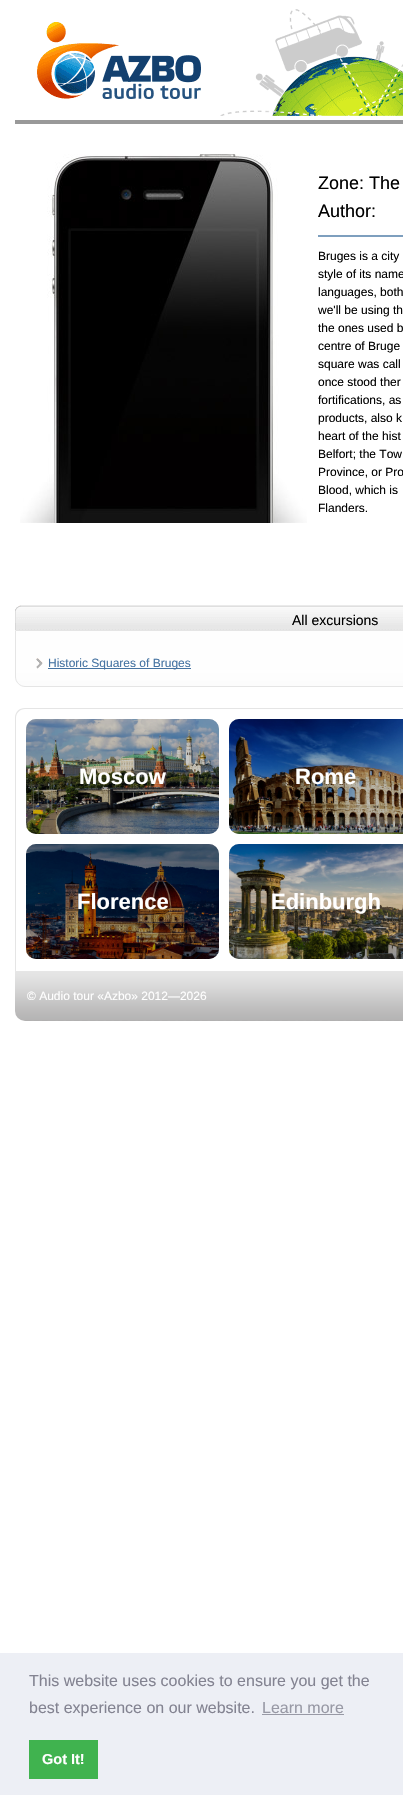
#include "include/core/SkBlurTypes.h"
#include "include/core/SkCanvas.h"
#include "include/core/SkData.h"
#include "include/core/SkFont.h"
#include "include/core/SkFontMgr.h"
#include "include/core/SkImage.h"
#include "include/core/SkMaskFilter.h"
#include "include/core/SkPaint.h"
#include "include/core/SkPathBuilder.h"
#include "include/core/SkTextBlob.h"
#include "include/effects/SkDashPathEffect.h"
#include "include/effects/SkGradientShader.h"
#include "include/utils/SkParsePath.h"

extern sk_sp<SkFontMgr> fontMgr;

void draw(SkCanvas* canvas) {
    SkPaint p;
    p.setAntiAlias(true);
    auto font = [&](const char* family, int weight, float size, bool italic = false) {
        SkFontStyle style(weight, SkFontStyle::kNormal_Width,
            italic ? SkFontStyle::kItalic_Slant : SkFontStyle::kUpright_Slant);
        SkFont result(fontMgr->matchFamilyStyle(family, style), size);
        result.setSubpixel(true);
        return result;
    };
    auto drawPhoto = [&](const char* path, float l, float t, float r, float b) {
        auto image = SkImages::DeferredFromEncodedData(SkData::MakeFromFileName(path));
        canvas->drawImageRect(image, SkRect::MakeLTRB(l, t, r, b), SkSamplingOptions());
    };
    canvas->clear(0xFFFFFFFF);
    p.setColor(0xFF999999);
    canvas->drawRect(SkRect::MakeLTRB(15, 120, 403, 124), p);
    drawPhoto("media/1.png", 37, 22, 201, 99);
    drawPhoto("media/2.png", 220, 9, 403, 116);
    drawPhoto("media/3.png", 20, 154, 307, 523);
    auto font1 = font("Liberation Sans", 400, 18);
    p.setColor(0xFF000000);
    canvas->drawString("Zone: The", 318, 189, font1, p);
    p.setColor(0xFF7E9FBE);
    canvas->drawRect(SkRect::MakeLTRB(318, 235, 403, 237), p);
    p.setColor(0xFF000000);
    canvas->drawString("Author:", 318, 217, font1, p);
    auto font2 = font("Liberation Sans", 400, 12);
    {
        const struct { const char* s; float x, y; } items[] = {
            {"Bruges is a city", 318, 260},
            {"style of its name", 318, 278},
            {"languages, both", 318, 296},
            {"we'll be using th", 318, 314},
            {"the ones used b", 318, 332},
            {"centre of Bruge", 318, 350},
            {"square was call", 318, 368},
            {"once stood ther", 318, 386},
            {"fortifications, as", 318, 404},
            {"products, also k", 318, 422},
            {"heart of the hist", 318, 440},
            {"Belfort; the Tow", 318, 458},
            {"Province, or Pro", 318, 476},
            {"Blood, which is", 318, 494},
            {"Flanders.", 318, 512},
        };
        for (auto [s, x, y] : items) {
            canvas->drawString(s, x, y, font2, p);
        }
    }
    drawPhoto("media/4.png", 15, 605, 403, 630);
    auto font3 = font("Liberation Sans", 400, 14);
    canvas->drawString("All excursions", 292, 625, font3, p);
    drawPhoto("media/5.png", 15, 631, 403, 687);
    p.setStyle(SkPaint::kStroke_Style);
    p.setStrokeWidth(1);
    p.setColor(0xFFE5E5E5);
    canvas->drawPath(SkPathBuilder().moveTo(15.5f, 630.5f).lineTo(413.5f, 630.5f).lineTo(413.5f, 677).cubicTo(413.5f, 682, 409, 686.5f, 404, 686.5f).lineTo(25, 686.5f).cubicTo(20, 686.5f, 15.5f, 682, 15.5f, 677).close().detach(), p);
    drawPhoto("media/6.png", 36, 658, 43, 669);
    p.setStyle(SkPaint::kFill_Style);
    p.setColor(0xFF4573A2);
    canvas->drawRect(SkRect::MakeLTRB(48, 668, 191, 669), p);
    canvas->drawString("Historic Squares of Bruges", 48, 667, font2, p);
    p.setColor(0xFFE5E5E5);
    canvas->drawPath(SkPathBuilder(SkPathFillType::kEvenOdd).moveTo(25, 708).lineTo(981, 708).cubicTo(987, 708, 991, 712, 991, 718).lineTo(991, 971).lineTo(15, 971).lineTo(15, 718).cubicTo(15, 712, 19, 708, 25, 708).close().moveTo(25, 709).lineTo(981, 709).cubicTo(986, 709, 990, 713, 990, 718).lineTo(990, 971).lineTo(16, 971).lineTo(16, 718).cubicTo(16, 713, 20, 709, 25, 709).close().detach(), p);
    p.setColor(0xFFCCCCCC);
    canvas->drawRoundRect(SkRect::MakeLTRB(26, 719, 219, 834), 10, 10, p);
    drawPhoto("media/7.png", 26, 719, 219, 834);
    drawPhoto("media/8.png", 26, 719, 219, 834);
    auto font4 = font("Liberation Sans", 700, 22);
    p.setColor(0xFFFFFFFF);
    canvas->drawString("Moscow", 79, 784, font4, p);
    p.setColor(0xFFCCCCCC);
    canvas->drawRoundRect(SkRect::MakeLTRB(229, 719, 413, 834), 10, 10, p);
    drawPhoto("media/9.png", 229, 719, 403, 834);
    drawPhoto("media/10.png", 229, 719, 403, 834);
    p.setColor(0xFFFFFFFF);
    canvas->drawString("Rome", 295, 784, font4, p);
    p.setColor(0xFFCCCCCC);
    canvas->drawRoundRect(SkRect::MakeLTRB(26, 844, 219, 959), 10, 10, p);
    drawPhoto("media/11.png", 26, 844, 219, 959);
    drawPhoto("media/12.png", 26, 844, 219, 959);
    p.setColor(0xFFFFFFFF);
    canvas->drawString("Florence", 77, 909, font4, p);
    p.setColor(0xFFCCCCCC);
    canvas->drawRoundRect(SkRect::MakeLTRB(229, 844, 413, 959), 10, 10, p);
    drawPhoto("media/13.png", 229, 844, 403, 959);
    drawPhoto("media/14.png", 229, 844, 403, 959);
    p.setColor(0xFFFFFFFF);
    canvas->drawString("Edinburgh", 271, 909, font4, p);
    drawPhoto("media/15.png", 15, 971, 403, 1021);
    canvas->drawString("© Audio tour «Azbo» 2012—2026", 27, 1000, font2, p);
    p.setColor(0xFFEDEFF5);
    canvas->drawRect(SkRect::MakeLTRB(0, 1653, 403, 1795), p);
    auto font5 = font("Liberation Sans", 400, 16);
    p.setColor(0xFF838391);
    canvas->drawString("This website uses cookies to ensure you get the", 29, 1686, font5, p);
    canvas->drawString("best experience on our website.", 29, 1713, font5, p);
    p.setColor(0xFF9899A5);
    canvas->drawString("Learn more", 262, 1713, font5, p);
    canvas->drawRect(SkRect::MakeLTRB(262, 1714, 344, 1715), p);
    p.setColor(0xFF40B34F);
    canvas->drawRect(SkRect::MakeLTRB(29, 1740, 98, 1779), p);
    auto font6 = font("Liberation Sans", 700, 14.5f);
    p.setColor(0xFFFFFFFF);
    canvas->drawString("Got It!", 42, 1764, font6, p);
}
